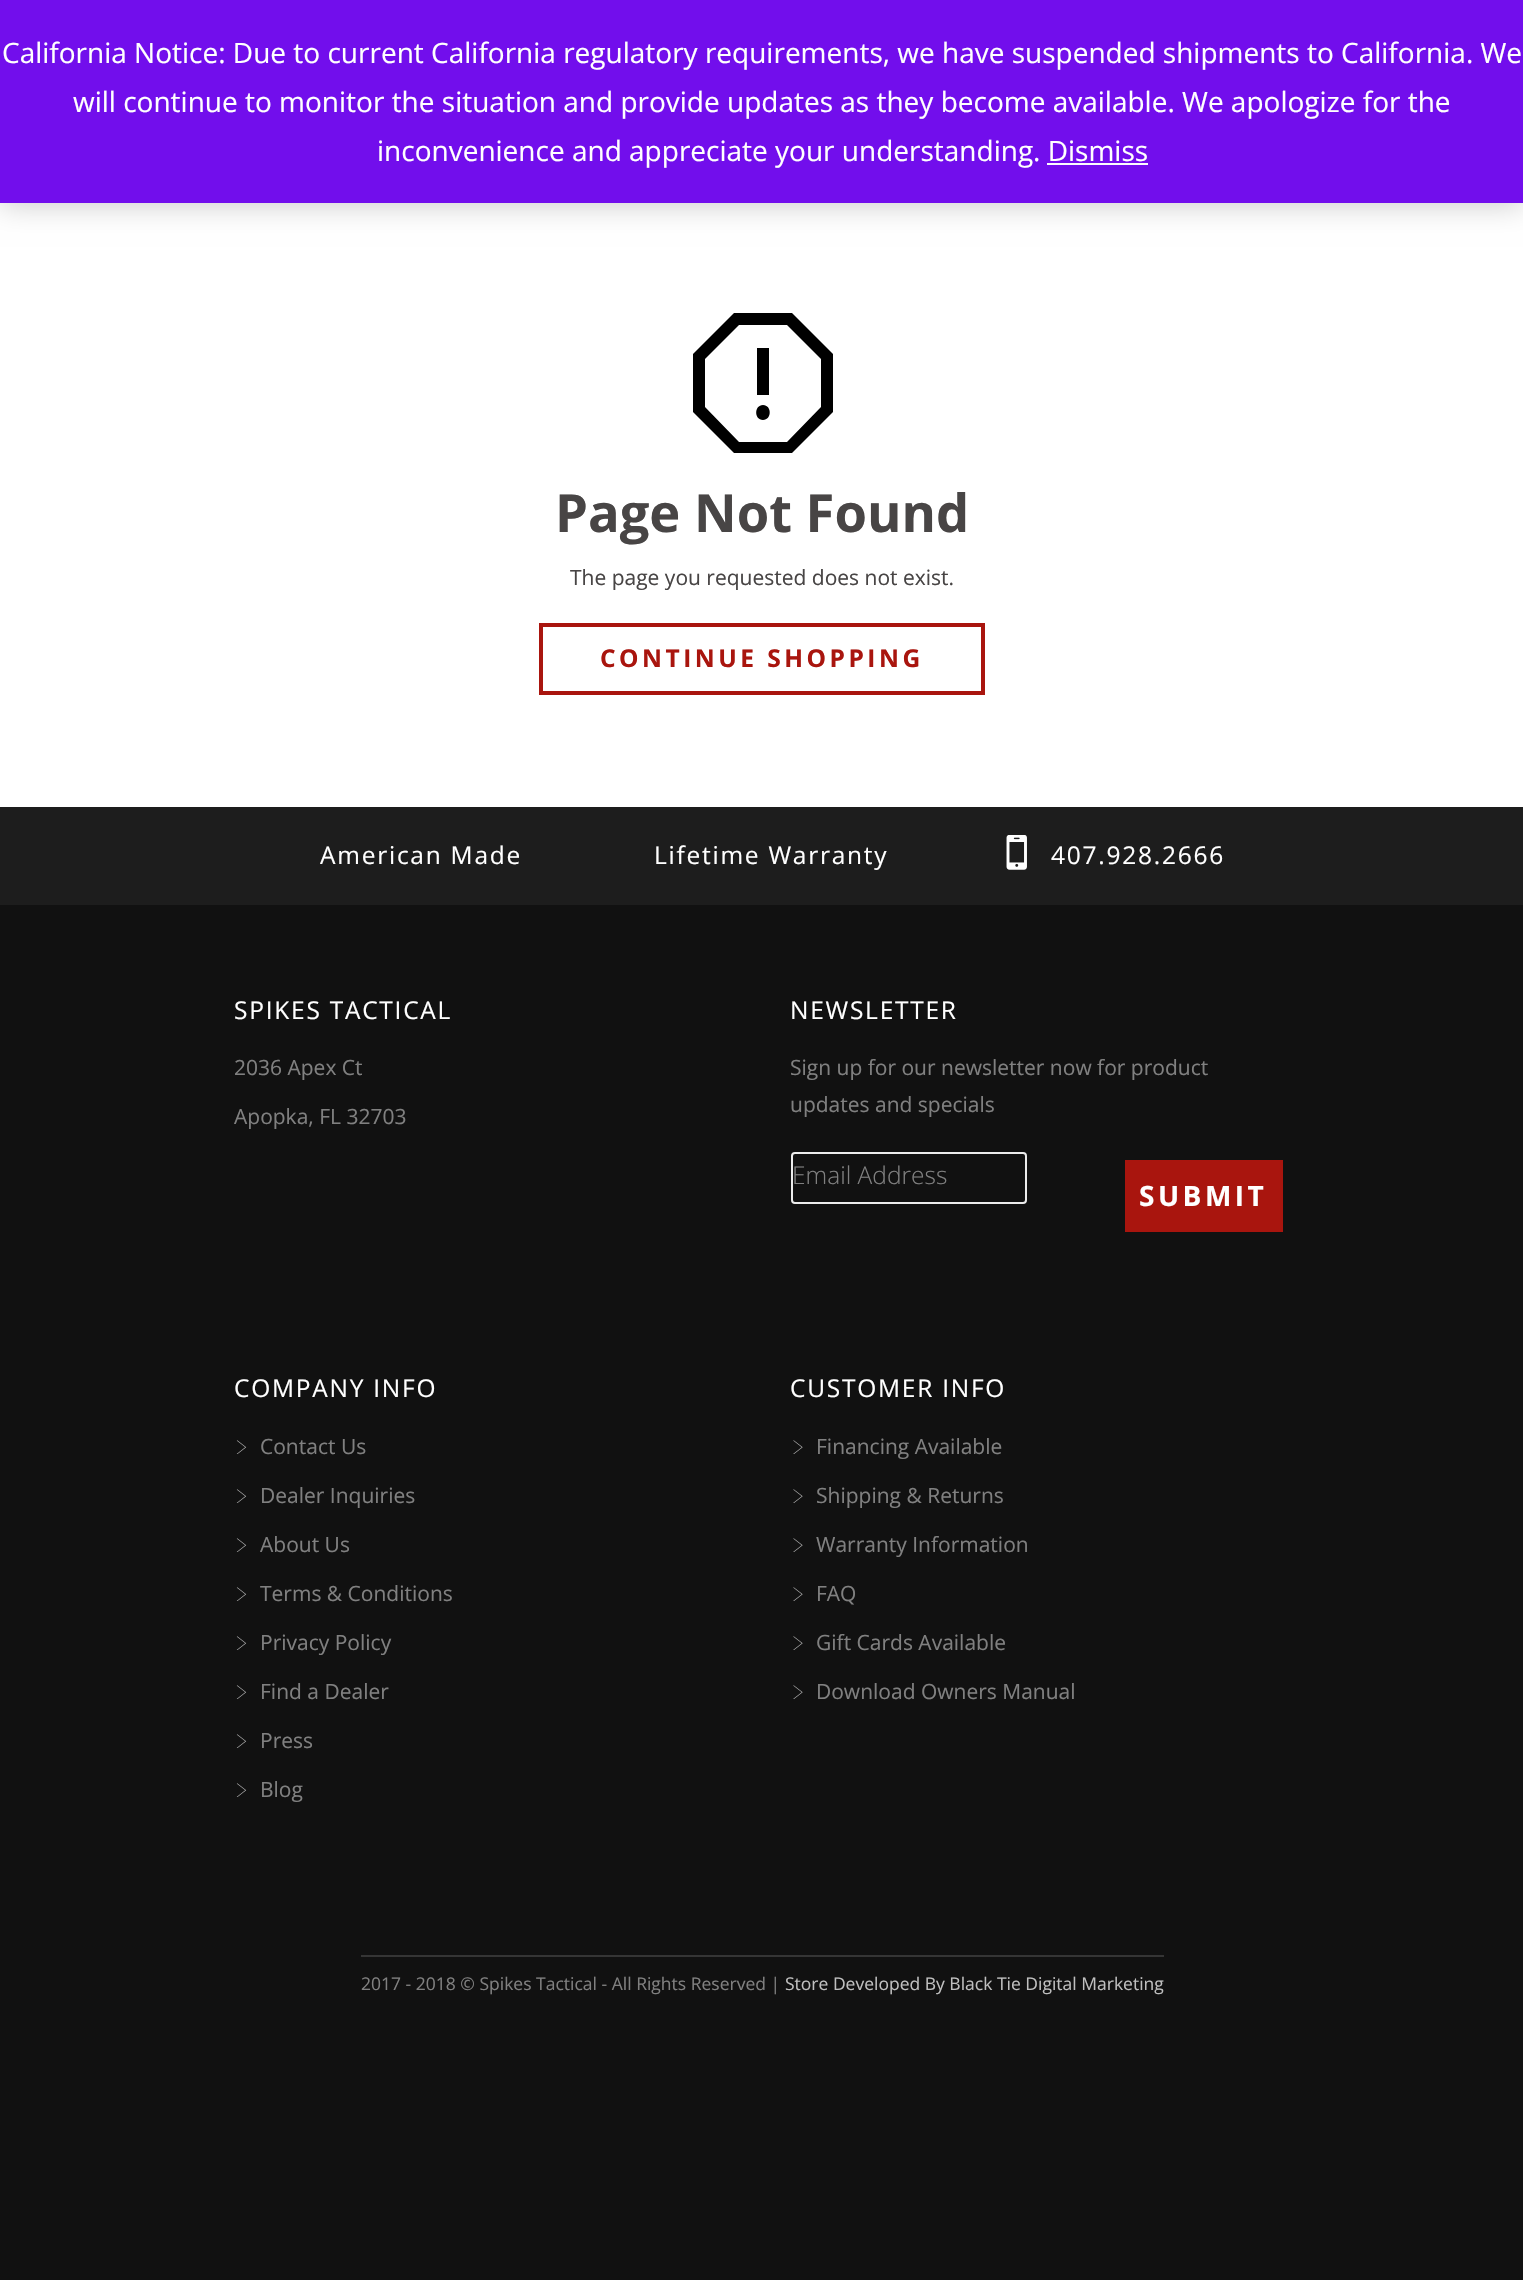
#include "include/core/SkBlurTypes.h"
#include "include/core/SkCanvas.h"
#include "include/core/SkData.h"
#include "include/core/SkFont.h"
#include "include/core/SkFontMgr.h"
#include "include/core/SkImage.h"
#include "include/core/SkMaskFilter.h"
#include "include/core/SkPaint.h"
#include "include/core/SkPathBuilder.h"
#include "include/core/SkTextBlob.h"
#include "include/effects/SkDashPathEffect.h"
#include "include/effects/SkGradientShader.h"
#include "include/utils/SkParsePath.h"

extern sk_sp<SkFontMgr> fontMgr;

void draw(SkCanvas* canvas) {
    SkPaint p;
    p.setAntiAlias(true);
    auto font = [&](const char* family, int weight, float size, bool italic = false) {
        SkFontStyle style(weight, SkFontStyle::kNormal_Width,
            italic ? SkFontStyle::kItalic_Slant : SkFontStyle::kUpright_Slant);
        SkFont result(fontMgr->matchFamilyStyle(family, style), size);
        result.setSubpixel(true);
        return result;
    };
    auto drawTracked = [&](const char* s, float x, float y, const SkFont& font, const SkPaint& ink, float letter, float word) {
        std::vector<SkGlyphID> glyphs(font.countText(s, strlen(s), SkTextEncoding::kUTF8));
        std::vector<float> xs(glyphs.size());
        font.textToGlyphs(s, strlen(s), SkTextEncoding::kUTF8, glyphs);
        font.getXPos(glyphs, xs, x);
        float extra = 0;
        for (size_t i = 0; i < glyphs.size(); i++) {
            xs[i] += extra;
            extra += letter + word * (glyphs[i] == font.unicharToGlyph(' '));
        }
        canvas->drawTextBlob(SkTextBlob::MakeFromPosHGlyphs(glyphs, xs, y, font), 0, 0, ink);
    };
    auto drawPhoto = [&](const char* path, float l, float t, float r, float b) {
        auto image = SkImages::DeferredFromEncodedData(SkData::MakeFromFileName(path));
        canvas->drawImageRect(image, SkRect::MakeLTRB(l, t, r, b), SkSamplingOptions());
    };
    canvas->clear(0xFF111111);
    p.setColor(0xFFFFFFFF);
    canvas->drawRect(SkRect::MakeLTRB(0, 203, 1523, 807), p);
    p.setColor(0x33000000);
    p.setMaskFilter(SkMaskFilter::MakeBlur(kNormal_SkBlurStyle, 14));
    canvas->drawRect(SkRect::MakeLTRB(0, 2, 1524, 205), p);
    p.setMaskFilter(nullptr);
    p.setColor(0xFF720EEC);
    canvas->drawRect(SkRect::MakeLTRB(0, 0, 1523, 203), p);
    auto font1 = font("Open Sans", 400, 28);
    p.setColor(0xFFFFFFFF);
    {
        const struct { const char* s; float x, y; } items[] = {
            {"California Notice: Due to current California regulatory requirements, we have suspended shipments to California. We", 2, 63},
            {"will continue to monitor the situation and provide updates as they become available. We apologize for the", 73, 112},
            {"inconvenience and appreciate your understanding. Dismiss", 377, 161},
        };
        for (auto [s, x, y] : items) {
            canvas->drawString(s, x, y, font1, p);
        }
    }
    p.setColor(0xFFFCFBFE);
    canvas->drawRect(SkRect::MakeLTRB(1047, 163, 1148, 165), p);
    p.setColor(0xFF000000);
    canvas->drawPath(SkPathBuilder().moveTo(787, 325).lineTo(821, 359).lineTo(821, 407).lineTo(787, 442).lineTo(739, 442).lineTo(705, 407).lineTo(705, 359).lineTo(739, 325).close().moveTo(792, 313).lineTo(734, 313).lineTo(693, 354).lineTo(693, 412).lineTo(734, 453).lineTo(792, 453).lineTo(833, 412).lineTo(833, 354).close().moveTo(757, 348).lineTo(769, 348).lineTo(769, 395).lineTo(757, 395).close().moveTo(763, 420).cubicTo(754, 420, 754, 405, 763, 405).cubicTo(772, 405, 772, 420, 763, 420).close().detach(), p);
    auto font2 = font("Open Sans", 700, 52.5f);
    p.setColor(0xFF484545);
    canvas->drawString("Page Not Found", 555, 532, font2, p);
    auto font3 = font("Open Sans", 400, 21);
    canvas->drawString("The page you requested does not exist.", 570, 585, font3, p);
    p.setStyle(SkPaint::kStroke_Style);
    p.setStrokeWidth(4);
    p.setColor(0xFFA9150E);
    canvas->drawRect(SkRect::MakeLTRB(541, 625, 983, 693), p);
    auto font4 = font("Open Sans", 700, 24.5f);
    p.setStyle(SkPaint::kFill_Style);
    drawTracked("CONTINUE SHOPPING", 600, 667, font4, p, 3.5f, 0);
    p.setColor(0xFF1D1D1D);
    canvas->drawRect(SkRect::MakeLTRB(0, 807, 1523, 905), p);
    auto font5 = font("Open Sans", 400, 24.5f);
    p.setColor(0xFFFFFFFF);
    drawTracked("American Made", 320, 864, font5, p, 1.75f, 0);
    drawTracked("Lifetime Warranty", 654, 864, font5, p, 1.75f, 0);
    drawPhoto("media/1.png", 1006, 835, 1027, 870);
    drawTracked("407.928.2666", 1051, 864, font5, p, 1.75f, 0);
    drawTracked("SPIKES TACTICAL", 234, 1019, font5, p, 1.75f, 0);
    p.setColor(0xFF808080);
    canvas->drawString("2036 Apex Ct", 234, 1075, font3, p);
    canvas->drawString("Apopka, FL 32703", 234, 1124, font3, p);
    p.setColor(0xFFFFFFFF);
    drawTracked("NEWSLETTER", 790, 1019, font5, p, 1.75f, 0);
    p.setColor(0xFF808080);
    canvas->drawString("Sign up for our newsletter now for product", 790, 1075, font3, p);
    canvas->drawString("updates and specials", 790, 1112, font3, p);
    p.setStyle(SkPaint::kStroke_Style);
    p.setStrokeWidth(2);
    p.setColor(0xFFECECEC);
    canvas->drawRoundRect(SkRect::MakeLTRB(792, 1153, 1026, 1203), 3, 3, p);
    auto font6 = font("Open Sans", 300, 24.5f);
    p.setStyle(SkPaint::kFill_Style);
    p.setColor(0xFF808080);
    canvas->drawString("Email Address", 792, 1184, font6, p);
    p.setColor(0xFFA9150E);
    canvas->drawRect(SkRect::MakeLTRB(1127, 1162, 1281, 1230), p);
    p.setStyle(SkPaint::kStroke_Style);
    p.setStrokeWidth(4);
    canvas->drawRect(SkRect::MakeLTRB(1127, 1162, 1281, 1230), p);
    auto font7 = font("Open Sans", 700, 28);
    p.setStyle(SkPaint::kFill_Style);
    p.setColor(0xFFFFFFFF);
    drawTracked("SUBMIT", 1139, 1206, font7, p, 3.5f, 0);
    drawTracked("COMPANY INFO", 234, 1397, font5, p, 1.75f, 0);
    drawPhoto("media/2.png", 236, 1440, 247, 1454);
    p.setColor(0xFF808080);
    canvas->drawString("Contact Us", 260, 1454, font3, p);
    drawPhoto("media/2.png", 236, 1489, 247, 1503);
    canvas->drawString("Dealer Inquiries", 260, 1503, font3, p);
    drawPhoto("media/2.png", 236, 1538, 247, 1552);
    canvas->drawString("About Us", 260, 1552, font3, p);
    drawPhoto("media/2.png", 236, 1587, 247, 1601);
    canvas->drawString("Terms & Conditions", 260, 1601, font3, p);
    drawPhoto("media/2.png", 236, 1636, 247, 1650);
    canvas->drawString("Privacy Policy", 260, 1650, font3, p);
    drawPhoto("media/2.png", 236, 1685, 247, 1699);
    canvas->drawString("Find a Dealer", 260, 1699, font3, p);
    drawPhoto("media/2.png", 236, 1734, 247, 1748);
    canvas->drawString("Press", 260, 1748, font3, p);
    drawPhoto("media/2.png", 236, 1783, 247, 1797);
    canvas->drawString("Blog", 260, 1797, font3, p);
    p.setColor(0xFFFFFFFF);
    drawTracked("CUSTOMER INFO", 790, 1397, font5, p, 1.75f, 0);
    drawPhoto("media/3.png", 793, 1440, 803, 1454);
    p.setColor(0xFF808080);
    canvas->drawString("Financing Available", 816, 1454, font3, p);
    drawPhoto("media/3.png", 793, 1489, 803, 1503);
    canvas->drawString("Shipping & Returns", 816, 1503, font3, p);
    drawPhoto("media/3.png", 793, 1538, 803, 1552);
    canvas->drawString("Warranty Information", 816, 1552, font3, p);
    drawPhoto("media/3.png", 793, 1587, 803, 1601);
    canvas->drawString("FAQ", 816, 1601, font3, p);
    drawPhoto("media/3.png", 793, 1636, 803, 1650);
    canvas->drawString("Gift Cards Available", 816, 1650, font3, p);
    drawPhoto("media/3.png", 793, 1685, 803, 1699);
    canvas->drawString("Download Owners Manual", 816, 1699, font3, p);
    p.setColor(0xFF353535);
    canvas->drawRect(SkRect::MakeLTRB(361, 1955, 1164, 1957), p);
    auto font8 = font("Open Sans", 400, 17.5f);
    p.setColor(0xFF808080);
    canvas->drawString("2017 - 2018 © Spikes Tactical - All Rights Reserved |", 361, 1990, font8, p);
    p.setColor(0xFFBFBFBF);
    canvas->drawString("Store Developed By Black Tie Digital Marketing", 785, 1990, font8, p);
}
